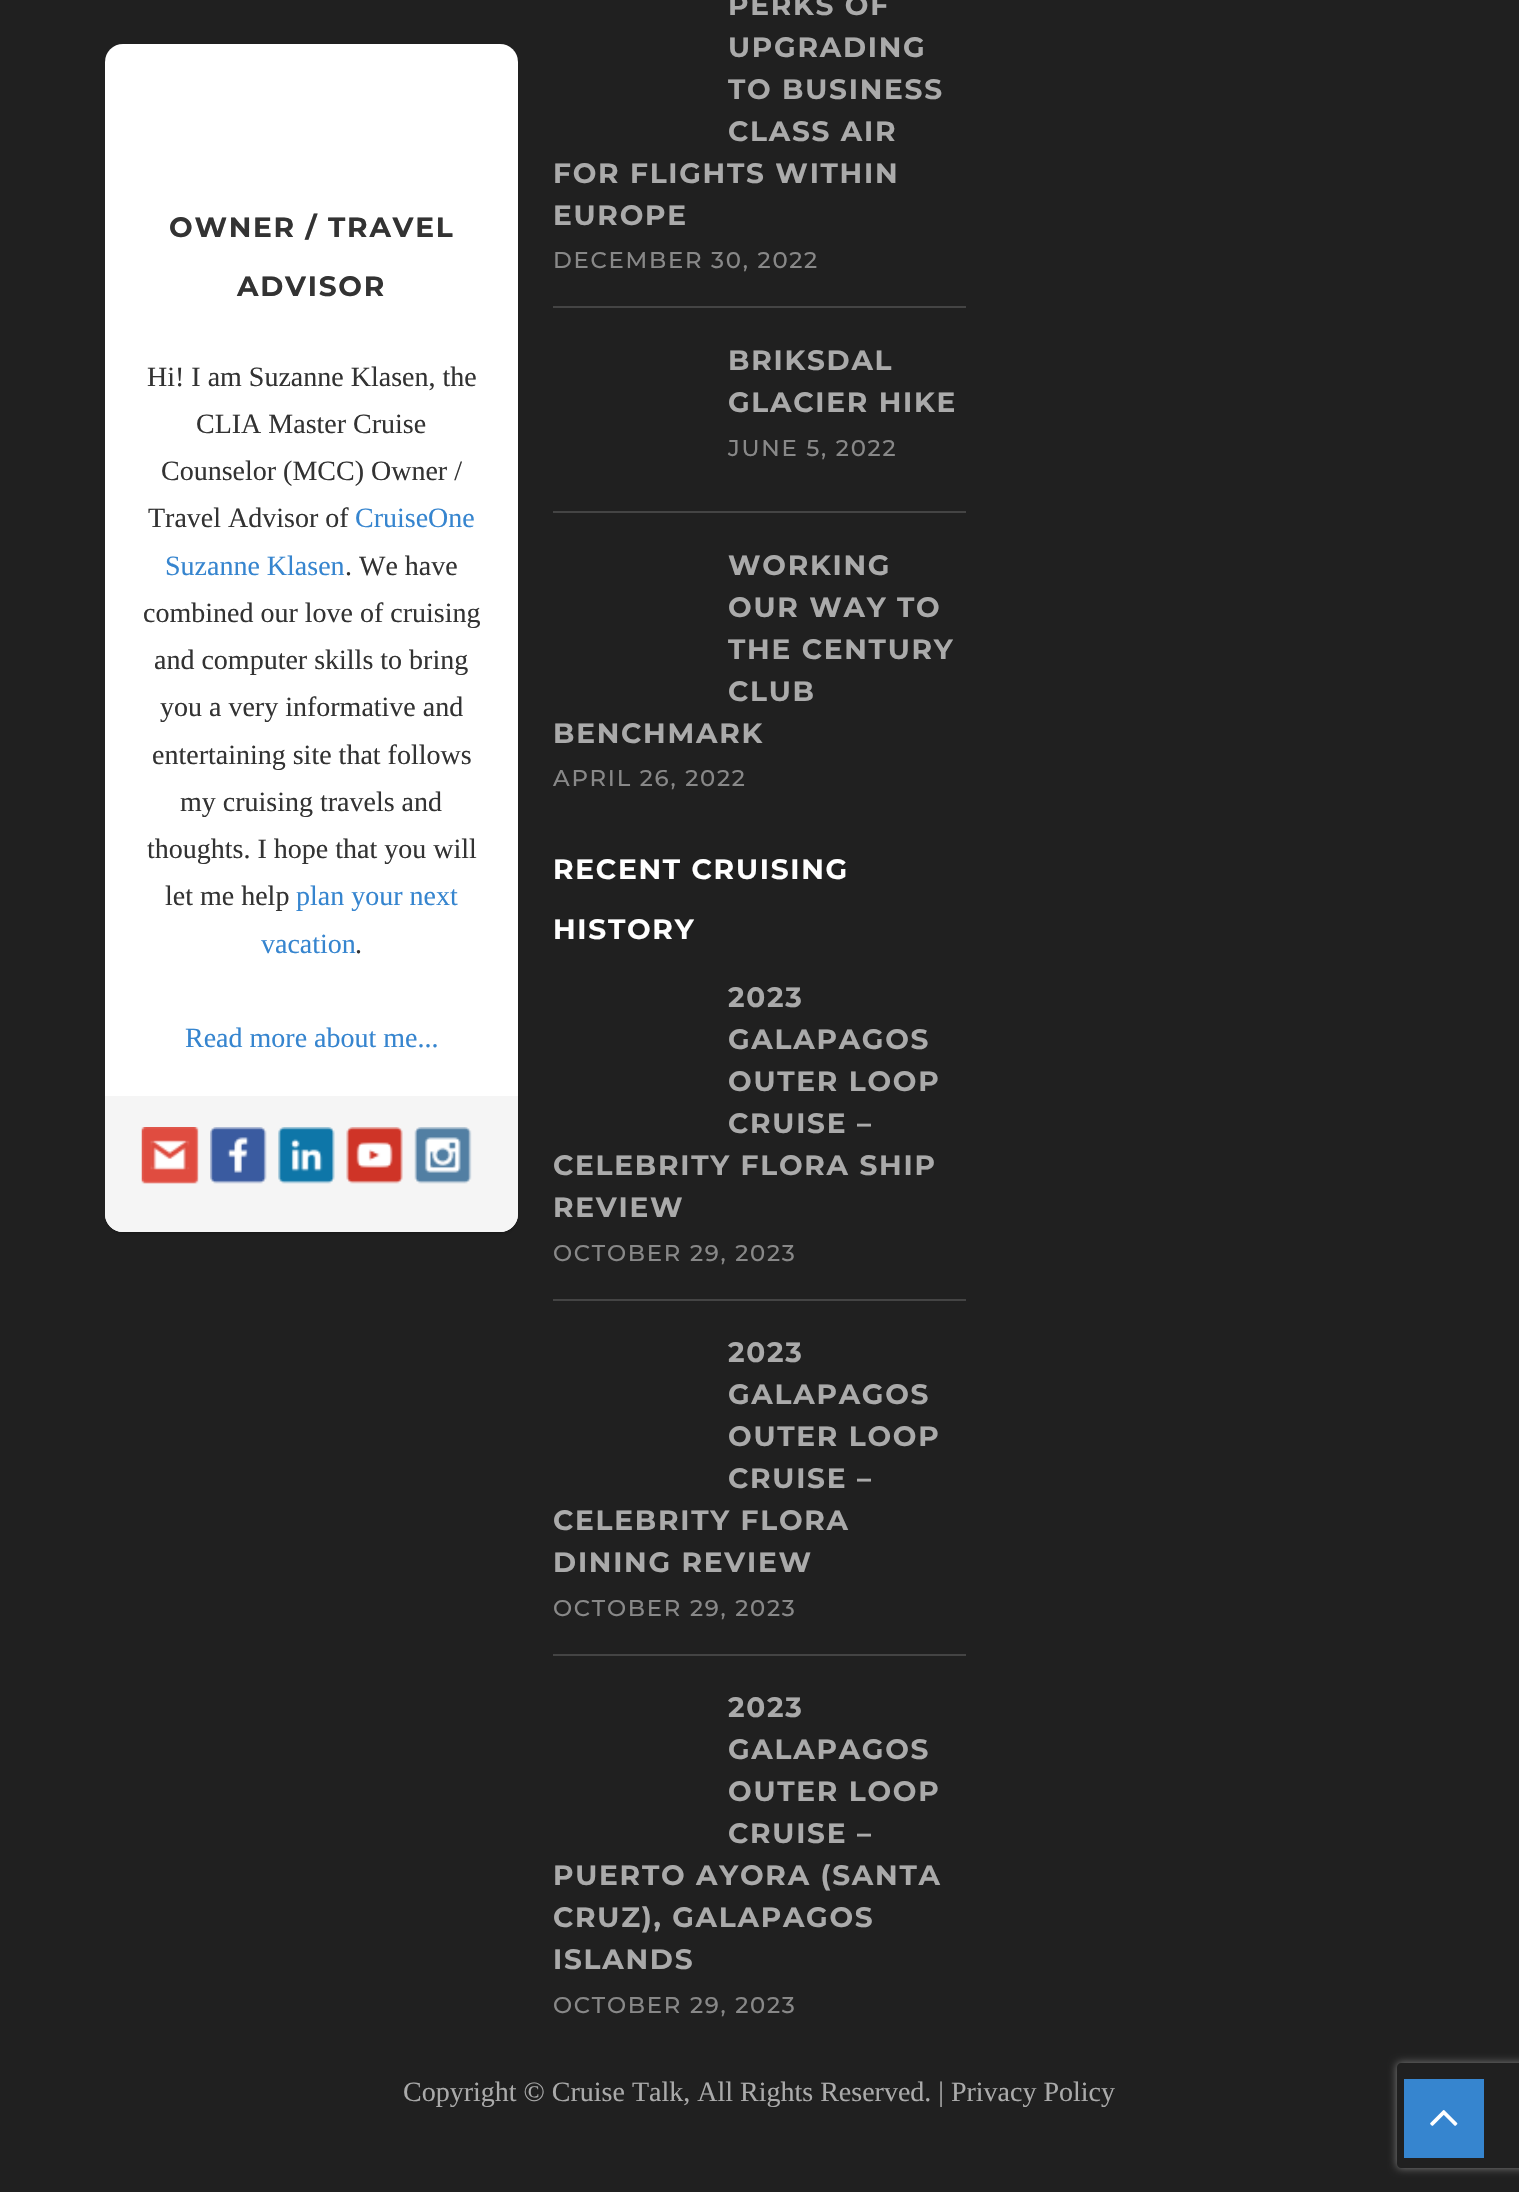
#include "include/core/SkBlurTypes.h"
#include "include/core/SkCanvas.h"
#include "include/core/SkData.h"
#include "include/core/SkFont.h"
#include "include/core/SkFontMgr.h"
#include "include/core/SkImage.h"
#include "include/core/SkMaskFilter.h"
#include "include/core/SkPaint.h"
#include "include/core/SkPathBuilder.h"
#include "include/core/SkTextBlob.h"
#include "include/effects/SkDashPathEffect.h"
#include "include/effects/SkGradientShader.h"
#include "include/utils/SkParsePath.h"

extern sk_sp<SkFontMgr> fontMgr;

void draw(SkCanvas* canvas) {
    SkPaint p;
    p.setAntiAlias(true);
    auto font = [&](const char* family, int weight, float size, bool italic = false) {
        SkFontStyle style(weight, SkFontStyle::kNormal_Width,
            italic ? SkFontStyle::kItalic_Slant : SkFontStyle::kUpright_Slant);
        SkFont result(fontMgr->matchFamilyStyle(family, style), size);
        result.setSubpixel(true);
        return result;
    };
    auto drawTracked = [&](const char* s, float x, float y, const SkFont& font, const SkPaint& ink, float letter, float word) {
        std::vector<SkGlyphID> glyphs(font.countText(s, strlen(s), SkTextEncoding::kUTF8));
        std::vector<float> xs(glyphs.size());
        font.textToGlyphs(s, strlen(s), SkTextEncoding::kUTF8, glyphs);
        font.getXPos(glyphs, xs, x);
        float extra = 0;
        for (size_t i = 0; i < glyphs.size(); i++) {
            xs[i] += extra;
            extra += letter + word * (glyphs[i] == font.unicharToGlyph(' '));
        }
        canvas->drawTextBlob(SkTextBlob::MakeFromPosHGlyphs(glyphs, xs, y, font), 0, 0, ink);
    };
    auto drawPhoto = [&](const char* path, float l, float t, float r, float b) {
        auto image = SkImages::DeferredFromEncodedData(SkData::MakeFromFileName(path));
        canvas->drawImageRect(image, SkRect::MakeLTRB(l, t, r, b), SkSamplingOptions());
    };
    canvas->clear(0xFF202020);
    p.setColor(0x85000000);
    p.setMaskFilter(SkMaskFilter::MakeBlur(kNormal_SkBlurStyle, 2));
    canvas->drawRoundRect(SkRect::MakeLTRB(109, 51, 515, 1232), 14, 14, p);
    p.setMaskFilter(nullptr);
    p.setColor(0xFFFFFFFF);
    canvas->drawRoundRect(SkRect::MakeLTRB(105, 44, 518, 1232), 18, 18, p);
    auto font1 = font("Montserrat", 700, 28);
    p.setColor(0xFF333333);
    drawTracked("OWNER / TRAVEL", 169, 237, font1, p, 1.75f, 0);
    drawTracked("ADVISOR", 237, 296, font1, p, 1.75f, 0);
    auto font2 = font("Liberation Serif", 400, 28);
    {
        const struct { const char* s; float x, y; } items[] = {
            {"Hi! I am Suzanne Klasen, the", 147, 386},
            {"CLIA Master Cruise", 196, 433},
            {"Counselor (MCC) Owner /", 161, 480},
            {"Travel Advisor of", 148, 527},
        };
        for (auto [s, x, y] : items) {
            canvas->drawString(s, x, y, font2, p);
        }
    }
    p.setColor(0xFF3685CF);
    canvas->drawString("CruiseOne", 355, 527, font2, p);
    canvas->drawString("Suzanne Klasen", 165, 575, font2, p);
    p.setColor(0xFF333333);
    {
        const struct { const char* s; float x, y; } items[] = {
            {". We have", 345, 575},
            {"combined our love of cruising", 143, 622},
            {"and computer skills to bring", 154, 669},
            {"you a very informative and", 160, 716},
            {"entertaining site that follows", 152, 764},
            {"my cruising travels and", 180, 811},
            {"thoughts. I hope that you will", 147, 858},
            {"let me help", 165, 905},
        };
        for (auto [s, x, y] : items) {
            canvas->drawString(s, x, y, font2, p);
        }
    }
    p.setColor(0xFF3685CF);
    canvas->drawString("plan your next", 296, 905, font2, p);
    canvas->drawString("vacation", 261, 953, font2, p);
    p.setColor(0xFF333333);
    canvas->drawString(".", 355, 953, font2, p);
    p.setColor(0xFF3685CF);
    canvas->drawString("Read more about me...", 185, 1047, font2, p);
    p.setColor(0xFFF5F5F5);
    canvas->drawPath(SkPathBuilder().moveTo(105, 1096).lineTo(518, 1096).lineTo(518, 1214).cubicTo(518, 1224, 510, 1232, 500, 1232).lineTo(123, 1232).cubicTo(113, 1232, 105, 1224, 105, 1214).close().detach(), p);
    drawPhoto("media/1.png", 141, 1127, 199, 1184);
    drawPhoto("media/2.png", 210, 1127, 267, 1184);
    drawPhoto("media/3.png", 278, 1127, 335, 1184);
    drawPhoto("media/4.png", 346, 1127, 403, 1184);
    drawPhoto("media/5.png", 414, 1127, 472, 1184);
    p.setColor(0xFF444444);
    canvas->drawRect(SkRect::MakeLTRB(553, 306, 966, 308), p);
    p.setColor(0xFFAAAAAA);
    {
        const struct { const char* s; float x, y; } items[] = {
            {"PERKS OF", 728, 15},
            {"UPGRADING", 728, 57},
            {"TO BUSINESS", 728, 99},
            {"CLASS AIR", 728, 141},
            {"FOR FLIGHTS WITHIN", 553, 183},
            {"EUROPE", 553, 225},
        };
        for (auto [s, x, y] : items) {
            drawTracked(s, x, y, font1, p, 1.75f, 0);
        }
    }
    auto font3 = font("Montserrat", 500, 22.75f);
    p.setColor(0xFF888888);
    drawTracked("DECEMBER 30, 2022", 553, 268, font3, p, 1.75f, 0);
    p.setColor(0xFF444444);
    canvas->drawRect(SkRect::MakeLTRB(553, 511, 966, 513), p);
    p.setColor(0xFFAAAAAA);
    drawTracked("BRIKSDAL", 728, 370, font1, p, 1.75f, 0);
    drawTracked("GLACIER HIKE", 728, 412, font1, p, 1.75f, 0);
    p.setColor(0xFF888888);
    drawTracked("JUNE 5, 2022", 728, 456, font3, p, 1.75f, 0);
    p.setColor(0xFFAAAAAA);
    {
        const struct { const char* s; float x, y; } items[] = {
            {"WORKING", 728, 575},
            {"OUR WAY TO", 728, 617},
            {"THE CENTURY", 728, 659},
            {"CLUB", 728, 701},
            {"BENCHMARK", 553, 743},
        };
        for (auto [s, x, y] : items) {
            drawTracked(s, x, y, font1, p, 1.75f, 0);
        }
    }
    p.setColor(0xFF888888);
    drawTracked("APRIL 26, 2022", 553, 786, font3, p, 1.75f, 0);
    p.setColor(0xFFFFFFFF);
    drawTracked("RECENT CRUISING", 553, 879, font1, p, 1.75f, 0);
    drawTracked("HISTORY", 553, 939, font1, p, 1.75f, 0);
    p.setColor(0xFF444444);
    canvas->drawRect(SkRect::MakeLTRB(553, 1299, 966, 1301), p);
    p.setColor(0xFFAAAAAA);
    {
        const struct { const char* s; float x, y; } items[] = {
            {"2023", 728, 1007},
            {"GALAPAGOS", 728, 1049},
            {"OUTER LOOP", 728, 1091},
            {"CRUISE –", 728, 1133},
            {"CELEBRITY FLORA SHIP", 553, 1175},
            {"REVIEW", 553, 1217},
        };
        for (auto [s, x, y] : items) {
            drawTracked(s, x, y, font1, p, 1.75f, 0);
        }
    }
    p.setColor(0xFF888888);
    drawTracked("OCTOBER 29, 2023", 553, 1261, font3, p, 1.75f, 0);
    p.setColor(0xFF444444);
    canvas->drawRect(SkRect::MakeLTRB(553, 1654, 966, 1656), p);
    p.setColor(0xFFAAAAAA);
    {
        const struct { const char* s; float x, y; } items[] = {
            {"2023", 728, 1362},
            {"GALAPAGOS", 728, 1404},
            {"OUTER LOOP", 728, 1446},
            {"CRUISE –", 728, 1488},
            {"CELEBRITY FLORA", 553, 1530},
            {"DINING REVIEW", 553, 1572},
        };
        for (auto [s, x, y] : items) {
            drawTracked(s, x, y, font1, p, 1.75f, 0);
        }
    }
    p.setColor(0xFF888888);
    drawTracked("OCTOBER 29, 2023", 553, 1616, font3, p, 1.75f, 0);
    p.setColor(0xFFAAAAAA);
    {
        const struct { const char* s; float x, y; } items[] = {
            {"2023", 728, 1717},
            {"GALAPAGOS", 728, 1759},
            {"OUTER LOOP", 728, 1801},
            {"CRUISE –", 728, 1843},
            {"PUERTO AYORA (SANTA", 553, 1885},
            {"CRUZ), GALAPAGOS", 553, 1927},
            {"ISLANDS", 553, 1969},
        };
        for (auto [s, x, y] : items) {
            drawTracked(s, x, y, font1, p, 1.75f, 0);
        }
    }
    p.setColor(0xFF888888);
    drawTracked("OCTOBER 29, 2023", 553, 2013, font3, p, 1.75f, 0);
    p.setColor(0xFFAAAAAA);
    canvas->drawString("Copyright © Cruise Talk, All Rights Reserved. | Privacy Policy", 403, 2101, font2, p);
    canvas->save();
    canvas->clipPath(SkPathBuilder(SkPathFillType::kEvenOdd).moveTo(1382, 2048).lineTo(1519, 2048).lineTo(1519, 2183).lineTo(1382, 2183).close().moveTo(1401, 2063).lineTo(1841, 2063).cubicTo(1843, 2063, 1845, 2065, 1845, 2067).lineTo(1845, 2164).cubicTo(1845, 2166, 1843, 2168, 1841, 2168).lineTo(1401, 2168).cubicTo(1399, 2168, 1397, 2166, 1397, 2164).lineTo(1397, 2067).cubicTo(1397, 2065, 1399, 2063, 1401, 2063).close().detach(), true);
    p.setColor(0xFF808080);
    p.setMaskFilter(SkMaskFilter::MakeBlur(kNormal_SkBlurStyle, 4.5f));
    canvas->drawRoundRect(SkRect::MakeLTRB(1397, 2063, 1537, 2168), 4, 4, p);
    p.setMaskFilter(nullptr);
    canvas->restore();
    p.setColor(0xFF3685CF);
    canvas->drawRect(SkRect::MakeLTRB(1404, 2079, 1484, 2158), p);
    drawPhoto("media/6.png", 1430, 2110, 1458, 2126);
}
